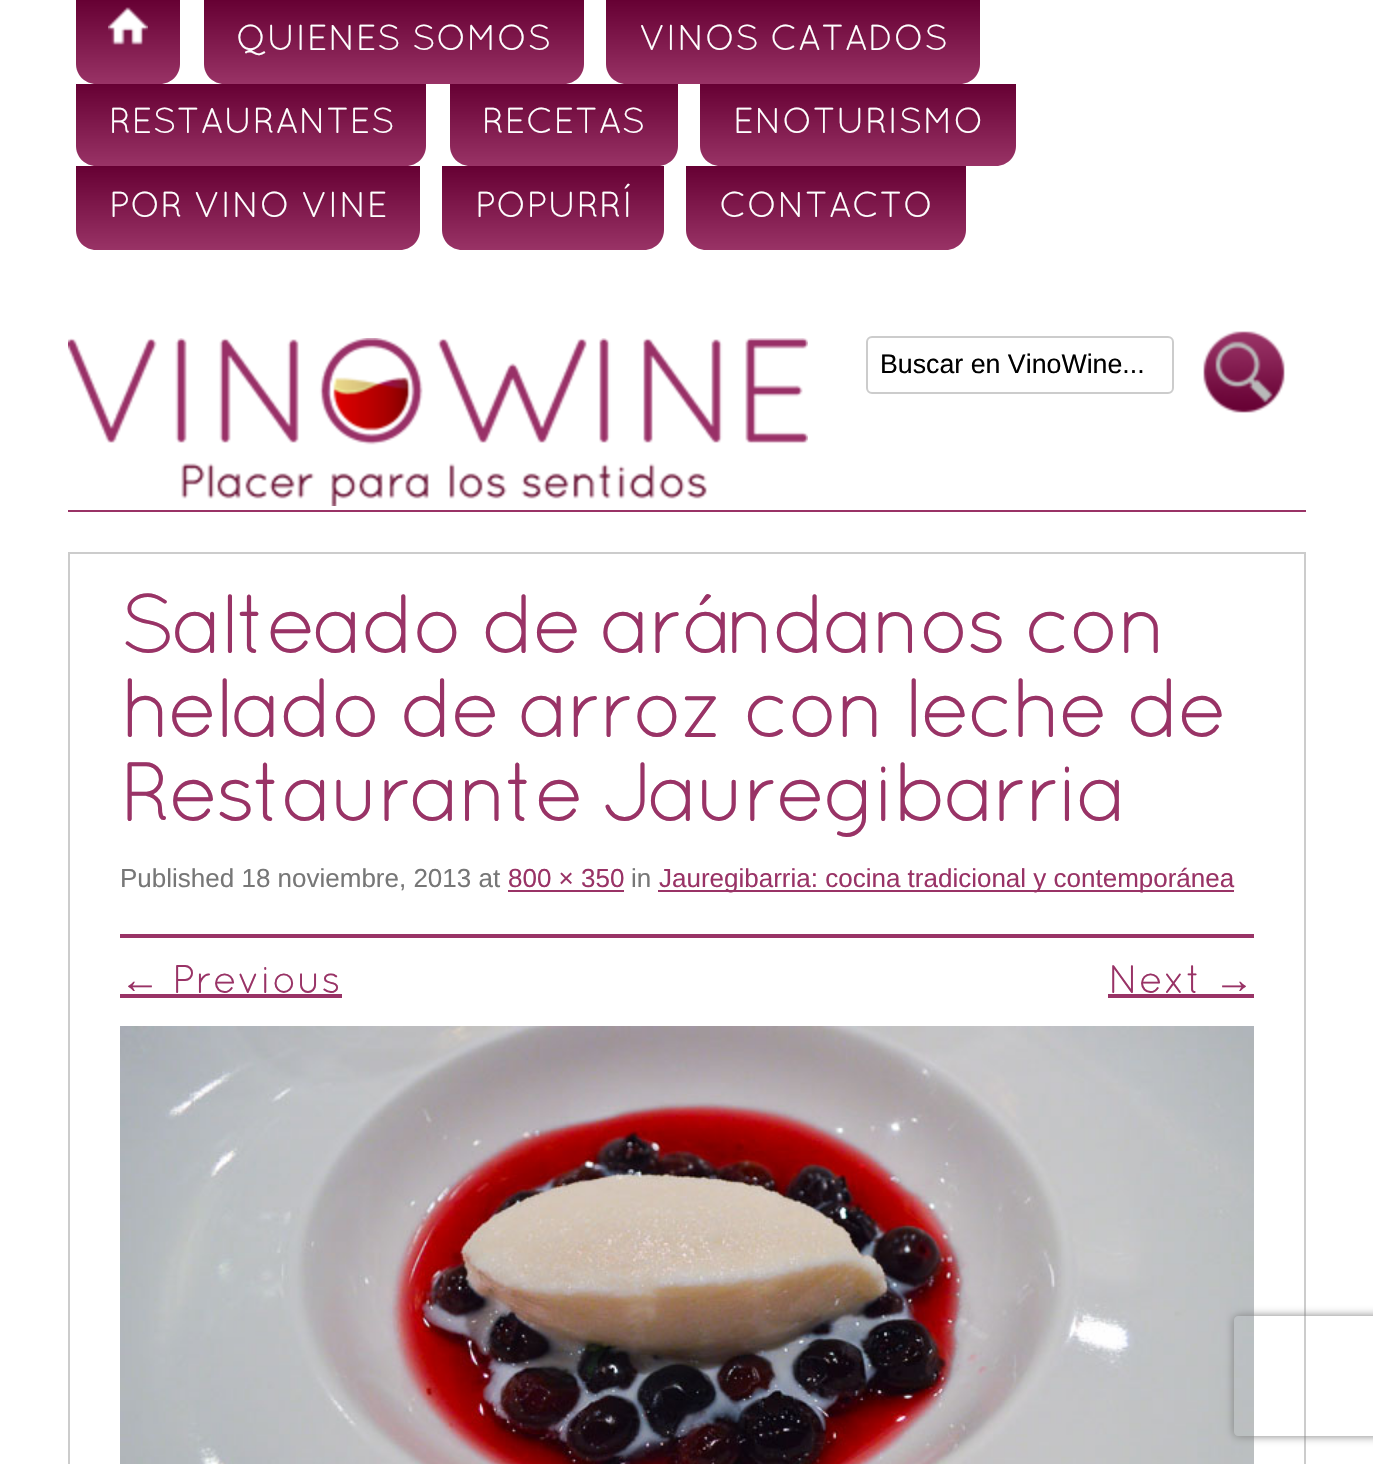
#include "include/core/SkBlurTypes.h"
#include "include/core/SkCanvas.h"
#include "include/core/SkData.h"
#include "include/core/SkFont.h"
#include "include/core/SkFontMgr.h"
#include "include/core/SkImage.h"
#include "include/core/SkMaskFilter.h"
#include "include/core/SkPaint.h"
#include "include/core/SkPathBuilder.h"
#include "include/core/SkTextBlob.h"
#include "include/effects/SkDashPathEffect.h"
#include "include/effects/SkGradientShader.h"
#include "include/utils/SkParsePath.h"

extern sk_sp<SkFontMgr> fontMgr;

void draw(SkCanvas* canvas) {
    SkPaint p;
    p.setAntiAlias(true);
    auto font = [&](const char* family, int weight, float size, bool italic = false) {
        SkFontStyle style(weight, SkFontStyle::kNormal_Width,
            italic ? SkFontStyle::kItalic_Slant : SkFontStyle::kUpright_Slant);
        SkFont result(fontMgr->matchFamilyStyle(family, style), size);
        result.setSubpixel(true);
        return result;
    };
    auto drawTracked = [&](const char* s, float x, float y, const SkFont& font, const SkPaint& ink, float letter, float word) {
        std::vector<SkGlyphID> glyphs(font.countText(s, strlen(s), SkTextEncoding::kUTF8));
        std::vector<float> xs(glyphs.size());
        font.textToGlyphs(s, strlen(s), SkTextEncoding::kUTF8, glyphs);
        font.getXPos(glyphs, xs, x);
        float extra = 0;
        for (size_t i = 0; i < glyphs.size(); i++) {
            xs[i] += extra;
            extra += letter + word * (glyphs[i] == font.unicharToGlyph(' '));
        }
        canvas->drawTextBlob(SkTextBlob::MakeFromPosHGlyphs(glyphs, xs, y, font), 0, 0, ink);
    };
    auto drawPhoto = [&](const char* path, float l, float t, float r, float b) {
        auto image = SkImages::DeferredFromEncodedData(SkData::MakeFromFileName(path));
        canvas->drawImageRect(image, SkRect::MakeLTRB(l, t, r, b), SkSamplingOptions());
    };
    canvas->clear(0xFFFFFFFF);
    p.setColor(0xFF993366);
    canvas->drawRect(SkRect::MakeLTRB(68, 510, 1306, 512), p);
    {
        const SkColor colors[] = {0xFF660033, 0xFF993366};
        const float stops[] = {0, 1};
        const SkPoint ends[] = {{128, 0}, {128, 84}};
        p.setShader(SkGradientShader::MakeLinear(ends, colors, stops, 2, SkTileMode::kClamp));
        p.setAlpha(255);
    }
    canvas->drawPath(SkPathBuilder().moveTo(76, 0).lineTo(180, 0).lineTo(180, 64).cubicTo(180, 75, 171, 84, 160, 84).lineTo(96, 84).cubicTo(85, 84, 76, 75, 76, 64).close().detach(), p);
    drawPhoto("media/1.png", 108, 7, 148, 45);
    {
        const SkColor colors[] = {0xFF660033, 0xFF993366};
        const float stops[] = {0, 1};
        const SkPoint ends[] = {{394, 0}, {394, 84}};
        p.setShader(SkGradientShader::MakeLinear(ends, colors, stops, 2, SkTileMode::kClamp));
        p.setAlpha(255);
    }
    canvas->drawPath(SkPathBuilder().moveTo(204, 0).lineTo(584, 0).lineTo(584, 64).cubicTo(584, 75, 575, 84, 564, 84).lineTo(224, 84).cubicTo(213, 84, 204, 75, 204, 64).close().detach(), p);
    auto font1 = font("Quicksand", 400, 36);
    p.setShader(nullptr);
    p.setColor(0xFFFFFFFF);
    canvas->drawString("QUIENES SOMOS", 236, 50, font1, p);
    {
        const SkColor colors[] = {0xFF660033, 0xFF993366};
        const float stops[] = {0, 1};
        const SkPoint ends[] = {{793, 0}, {793, 84}};
        p.setShader(SkGradientShader::MakeLinear(ends, colors, stops, 2, SkTileMode::kClamp));
        p.setAlpha(255);
    }
    canvas->drawPath(SkPathBuilder().moveTo(606, 0).lineTo(980, 0).lineTo(980, 64).cubicTo(980, 75, 971, 84, 960, 84).lineTo(626, 84).cubicTo(615, 84, 606, 75, 606, 64).close().detach(), p);
    p.setShader(nullptr);
    p.setColor(0xFFFFFFFF);
    canvas->drawString("VINOS CATADOS", 639, 50, font1, p);
    {
        const SkColor colors[] = {0xFF660033, 0xFF993366};
        const float stops[] = {0, 1};
        const SkPoint ends[] = {{251, 84}, {251, 166}};
        p.setShader(SkGradientShader::MakeLinear(ends, colors, stops, 2, SkTileMode::kClamp));
        p.setAlpha(255);
    }
    canvas->drawPath(SkPathBuilder().moveTo(76, 84).lineTo(426, 84).lineTo(426, 146).cubicTo(426, 157, 417, 166, 406, 166).lineTo(96, 166).cubicTo(85, 166, 76, 157, 76, 146).close().detach(), p);
    p.setShader(nullptr);
    p.setColor(0xFFFFFFFF);
    canvas->drawString("RESTAURANTES", 109, 133, font1, p);
    {
        const SkColor colors[] = {0xFF660033, 0xFF993366};
        const float stops[] = {0, 1};
        const SkPoint ends[] = {{564, 84}, {564, 166}};
        p.setShader(SkGradientShader::MakeLinear(ends, colors, stops, 2, SkTileMode::kClamp));
        p.setAlpha(255);
    }
    canvas->drawPath(SkPathBuilder().moveTo(450, 84).lineTo(678, 84).lineTo(678, 146).cubicTo(678, 157, 669, 166, 658, 166).lineTo(470, 166).cubicTo(459, 166, 450, 157, 450, 146).close().detach(), p);
    p.setShader(nullptr);
    p.setColor(0xFFFFFFFF);
    canvas->drawString("RECETAS", 482, 133, font1, p);
    {
        const SkColor colors[] = {0xFF660033, 0xFF993366};
        const float stops[] = {0, 1};
        const SkPoint ends[] = {{858, 84}, {858, 166}};
        p.setShader(SkGradientShader::MakeLinear(ends, colors, stops, 2, SkTileMode::kClamp));
        p.setAlpha(255);
    }
    canvas->drawPath(SkPathBuilder().moveTo(700, 84).lineTo(1016, 84).lineTo(1016, 146).cubicTo(1016, 157, 1007, 166, 996, 166).lineTo(720, 166).cubicTo(709, 166, 700, 157, 700, 146).close().detach(), p);
    p.setShader(nullptr);
    p.setColor(0xFFFFFFFF);
    canvas->drawString("ENOTURISMO", 733, 133, font1, p);
    {
        const SkColor colors[] = {0xFF660033, 0xFF993366};
        const float stops[] = {0, 1};
        const SkPoint ends[] = {{248, 166}, {248, 250}};
        p.setShader(SkGradientShader::MakeLinear(ends, colors, stops, 2, SkTileMode::kClamp));
        p.setAlpha(255);
    }
    canvas->drawPath(SkPathBuilder().moveTo(76, 166).lineTo(420, 166).lineTo(420, 230).cubicTo(420, 241, 411, 250, 400, 250).lineTo(96, 250).cubicTo(85, 250, 76, 241, 76, 230).close().detach(), p);
    p.setShader(nullptr);
    p.setColor(0xFFFFFFFF);
    canvas->drawString("POR VINO VINE", 109, 217, font1, p);
    {
        const SkColor colors[] = {0xFF660033, 0xFF993366};
        const float stops[] = {0, 1};
        const SkPoint ends[] = {{553, 166}, {553, 250}};
        p.setShader(SkGradientShader::MakeLinear(ends, colors, stops, 2, SkTileMode::kClamp));
        p.setAlpha(255);
    }
    canvas->drawPath(SkPathBuilder().moveTo(442, 166).lineTo(664, 166).lineTo(664, 230).cubicTo(664, 241, 655, 250, 644, 250).lineTo(462, 250).cubicTo(451, 250, 442, 241, 442, 230).close().detach(), p);
    p.setShader(nullptr);
    p.setColor(0xFFFFFFFF);
    canvas->drawString("POPURRÍ", 475, 217, font1, p);
    {
        const SkColor colors[] = {0xFF660033, 0xFF993366};
        const float stops[] = {0, 1};
        const SkPoint ends[] = {{826, 166}, {826, 250}};
        p.setShader(SkGradientShader::MakeLinear(ends, colors, stops, 2, SkTileMode::kClamp));
        p.setAlpha(255);
    }
    canvas->drawPath(SkPathBuilder().moveTo(686, 166).lineTo(966, 166).lineTo(966, 230).cubicTo(966, 241, 957, 250, 946, 250).lineTo(706, 250).cubicTo(695, 250, 686, 241, 686, 230).close().detach(), p);
    p.setShader(nullptr);
    p.setColor(0xFFFFFFFF);
    canvas->drawString("CONTACTO", 719, 217, font1, p);
    drawPhoto("media/2.png", 68, 338, 808, 506);
    p.setStyle(SkPaint::kStroke_Style);
    p.setStrokeWidth(2);
    p.setColor(0xFFCCCCCC);
    canvas->drawRoundRect(SkRect::MakeLTRB(867, 337, 1173, 393), 5, 5, p);
    auto font2 = font("Liberation Sans", 400, 26.75f);
    p.setStyle(SkPaint::kFill_Style);
    p.setColor(0xFF000000);
    canvas->drawString("Buscar en VinoWine...", 880, 373, font2, p);
    drawPhoto("media/3.png", 1203, 331, 1285, 413);
    p.setStyle(SkPaint::kStroke_Style);
    p.setColor(0xFFCCCCCC);
    canvas->drawRect(SkRect::MakeLTRB(69, 553, 1305, 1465), p);
    auto font3 = font("Quicksand", 400, 84);
    p.setStyle(SkPaint::kFill_Style);
    p.setColor(0xFF993366);
    {
        const struct { const char* s; float x, y; } items[] = {
            {"Salteado de arándanos con", 120, 653},
            {"helado de arroz con leche de", 120, 737},
            {"Restaurante Jauregibarria", 120, 821},
        };
        for (auto [s, x, y] : items) {
            drawTracked(s, x, y, font3, p, -4.2f, 0);
        }
    }
    auto font4 = font("Liberation Sans", 400, 26);
    p.setColor(0xFF777777);
    canvas->drawString("Published 18 noviembre, 2013 at", 120, 887, font4, p);
    p.setColor(0xFF993366);
    canvas->drawString("800 × 350", 508, 887, font4, p);
    canvas->drawRect(SkRect::MakeLTRB(508, 890, 624, 892), p);
    p.setColor(0xFF777777);
    canvas->drawString("in", 631, 887, font4, p);
    p.setColor(0xFF993366);
    canvas->drawRect(SkRect::MakeLTRB(658, 890, 1234, 892), p);
    canvas->drawString("Jauregibarria: cocina tradicional y contemporánea", 659, 887, font4, p);
    canvas->drawRect(SkRect::MakeLTRB(120, 934, 1254, 938), p);
    auto font5 = font("Liberation Sans", 400, 40);
    canvas->drawString("←", 120, 993, font5, p);
    canvas->drawRect(SkRect::MakeLTRB(120, 994, 342, 998), p);
    auto font6 = font("Quicksand", 400, 40);
    canvas->drawString("Previous", 172, 993, font6, p);
    canvas->drawString("Next", 1108, 993, font6, p);
    canvas->drawString("→", 1214, 993, font5, p);
    canvas->drawRect(SkRect::MakeLTRB(1108, 994, 1254, 998), p);
    drawPhoto("media/4.png", 120, 1026, 1254, 1464);
    canvas->save();
    canvas->clipPath(SkPathBuilder(SkPathFillType::kEvenOdd).moveTo(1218, 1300).lineTo(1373, 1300).lineTo(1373, 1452).lineTo(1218, 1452).close().moveTo(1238, 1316).lineTo(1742, 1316).cubicTo(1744, 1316, 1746, 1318, 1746, 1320).lineTo(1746, 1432).cubicTo(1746, 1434, 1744, 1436, 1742, 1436).lineTo(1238, 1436).cubicTo(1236, 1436, 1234, 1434, 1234, 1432).lineTo(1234, 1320).cubicTo(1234, 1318, 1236, 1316, 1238, 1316).close().detach(), true);
    p.setColor(0xFF808080);
    p.setMaskFilter(SkMaskFilter::MakeBlur(kNormal_SkBlurStyle, 5));
    canvas->drawRoundRect(SkRect::MakeLTRB(1234, 1316, 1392, 1436), 4, 4, p);
    p.setMaskFilter(nullptr);
    canvas->restore();
}
